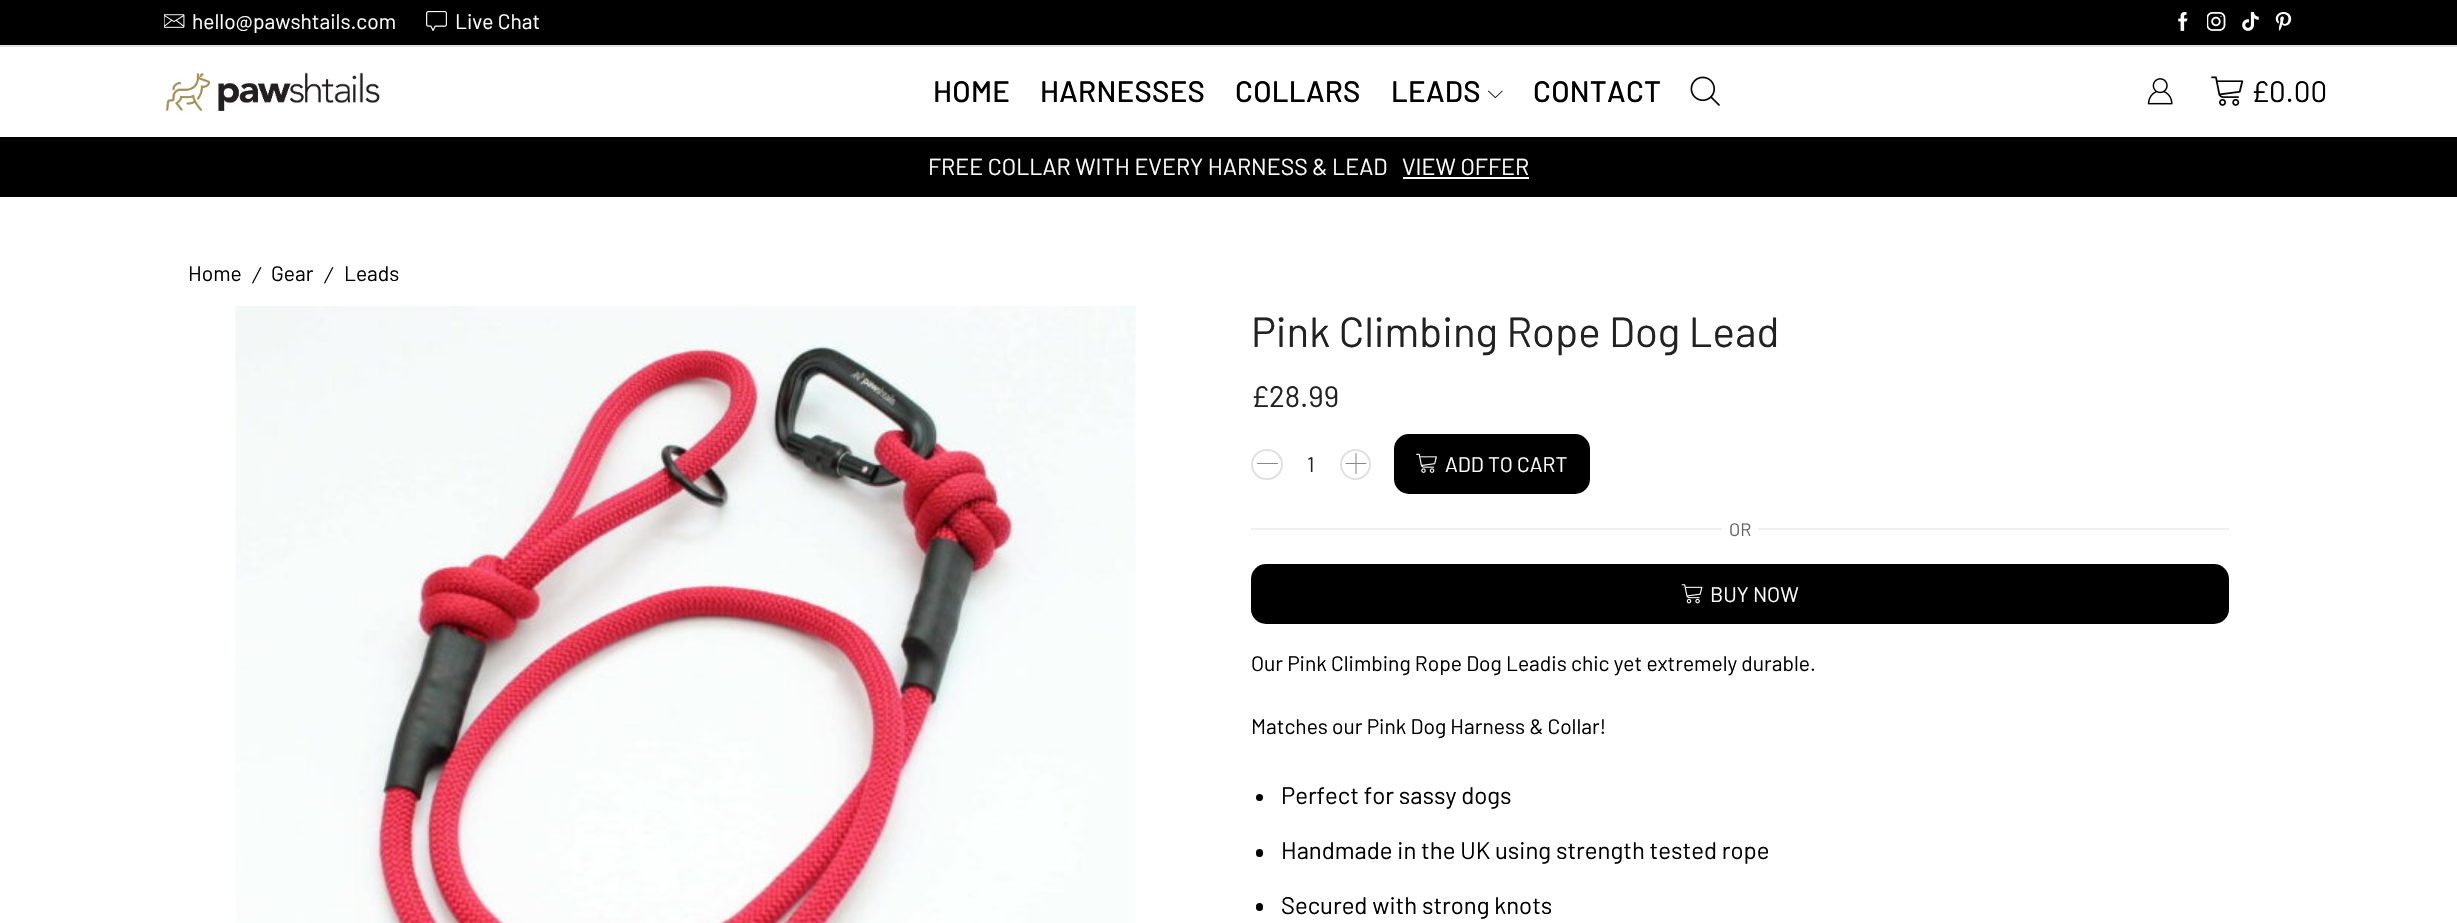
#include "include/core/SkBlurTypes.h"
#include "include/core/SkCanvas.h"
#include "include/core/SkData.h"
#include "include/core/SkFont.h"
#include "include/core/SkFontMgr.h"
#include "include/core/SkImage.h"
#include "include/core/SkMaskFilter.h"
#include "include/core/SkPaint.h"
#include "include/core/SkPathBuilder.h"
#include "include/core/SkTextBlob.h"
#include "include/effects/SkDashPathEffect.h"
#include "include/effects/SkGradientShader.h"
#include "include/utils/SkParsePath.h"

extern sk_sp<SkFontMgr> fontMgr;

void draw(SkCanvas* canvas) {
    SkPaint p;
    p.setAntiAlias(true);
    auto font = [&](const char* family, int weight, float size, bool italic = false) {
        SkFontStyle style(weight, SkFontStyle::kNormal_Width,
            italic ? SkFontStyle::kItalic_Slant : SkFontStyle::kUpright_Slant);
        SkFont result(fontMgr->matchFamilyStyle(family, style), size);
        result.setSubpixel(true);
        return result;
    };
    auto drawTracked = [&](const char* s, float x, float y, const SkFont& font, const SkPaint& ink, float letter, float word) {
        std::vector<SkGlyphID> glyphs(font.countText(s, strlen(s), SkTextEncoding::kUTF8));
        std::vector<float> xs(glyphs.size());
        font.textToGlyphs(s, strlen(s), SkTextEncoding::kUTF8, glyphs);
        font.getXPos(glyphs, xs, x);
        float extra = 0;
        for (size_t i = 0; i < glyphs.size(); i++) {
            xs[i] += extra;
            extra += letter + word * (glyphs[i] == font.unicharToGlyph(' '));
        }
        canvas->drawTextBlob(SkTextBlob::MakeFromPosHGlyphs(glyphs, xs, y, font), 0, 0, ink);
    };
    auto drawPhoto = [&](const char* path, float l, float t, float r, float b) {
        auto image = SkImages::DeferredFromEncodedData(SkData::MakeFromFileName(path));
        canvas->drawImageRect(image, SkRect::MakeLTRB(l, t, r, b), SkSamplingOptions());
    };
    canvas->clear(0xFFFFFFFF);
    p.setColor(0xFF000000);
    canvas->drawRect(SkRect::MakeLTRB(0, 0, 2457, 45), p);
    p.setColor(0xFFE1E1E1);
    canvas->drawRect(SkRect::MakeLTRB(0, 45, 2457, 47), p);
    drawPhoto("media/1.png", 164, 14, 185, 28);
    auto font1 = font("Barlow", 400, 21);
    p.setColor(0xFFFFFFFF);
    canvas->drawString("hello@pawshtails.com", 192, 29, font1, p);
    drawPhoto("media/2.png", 426, 11, 447, 31);
    canvas->drawString("Live Chat", 455, 29, font1, p);
    drawPhoto("media/3.png", 2178, 12, 2188, 31);
    drawPhoto("media/4.png", 2207, 12, 2226, 31);
    drawPhoto("media/5.png", 2242, 12, 2259, 31);
    drawPhoto("media/6.png", 2275, 12, 2292, 31);
    drawPhoto("media/7.png", 165, 72, 380, 111);
    auto font2 = font("Barlow", 500, 29.5f);
    p.setColor(0xFF000000);
    {
        const struct { const char* s; float x, y; } items[] = {
            {"HOME", 933, 102},
            {"HARNESSES", 1040, 102},
            {"COLLARS", 1235, 102},
            {"LEADS", 1391, 102},
        };
        for (auto [s, x, y] : items) {
            drawTracked(s, x, y, font2, p, 0.25f, 0);
        }
    }
    drawPhoto("media/8.png", 1488, 90, 1503, 99);
    drawTracked("CONTACT", 1533, 102, font2, p, 0.25f, 0);
    drawPhoto("media/9.png", 1690, 76, 1720, 106);
    drawPhoto("media/10.png", 2147, 78, 2173, 105);
    drawPhoto("media/11.png", 2211, 76, 2244, 106);
    auto font3 = font("Barlow", 400, 29.5f);
    canvas->drawString("£0.00", 2251, 102, font3, p);
    canvas->drawRect(SkRect::MakeLTRB(0, 137, 2457, 197), p);
    auto font4 = font("Barlow", 400, 23.1f);
    p.setColor(0xFFFFFFFF);
    canvas->drawString("FREE COLLAR WITH EVERY HARNESS & LEAD", 928, 175, font4, p);
    canvas->drawString("VIEW OFFER", 1402, 175, font4, p);
    canvas->drawRect(SkRect::MakeLTRB(1403, 177, 1529, 179), p);
    p.setColor(0xFF000000);
    canvas->drawString("Home", 188, 281, font1, p);
    auto font5 = font("Liberation Serif", 400, 23.9f, true);
    canvas->drawString("/", 253, 283, font5, p);
    canvas->drawString("Gear", 271, 281, font1, p);
    canvas->drawString("/", 325, 283, font5, p);
    canvas->drawString("Leads", 344, 281, font1, p);
    drawPhoto("media/12.png", 235, 306, 1136, 923);
    auto font6 = font("Barlow", 400, 42);
    p.setColor(0xFF222222);
    canvas->drawString("Pink Climbing Rope Dog Lead", 1251, 347, font6, p);
    canvas->drawString("£28.99", 1251, 407, font3, p);
    p.setStyle(SkPaint::kStroke_Style);
    p.setStrokeWidth(2);
    p.setColor(0xFFE1E1E1);
    canvas->drawRoundRect(SkRect::MakeLTRB(1252, 450, 1282, 479), 14.5f, 14.5f, p);
    drawPhoto("media/13.png", 1257, 463, 1278, 464);
    p.setStyle(SkPaint::kFill_Style);
    p.setColor(0xFF222222);
    canvas->drawString("1", 1307, 472, font1, p);
    p.setStyle(SkPaint::kStroke_Style);
    p.setColor(0xFFE1E1E1);
    canvas->drawCircle(1355.5f, 464.5f, 14.5f, p);
    drawPhoto("media/14.png", 1345, 453, 1367, 474);
    p.setStyle(SkPaint::kFill_Style);
    p.setColor(0xFF000000);
    canvas->drawRoundRect(SkRect::MakeLTRB(1394, 434, 1590, 494), 15, 15, p);
    drawPhoto("media/15.png", 1416, 453, 1437, 473);
    p.setColor(0xFFFFFFFF);
    canvas->drawString("ADD TO CART", 1445, 472, font1, p);
    p.setColor(0xFFF0F0F0);
    canvas->drawRect(SkRect::MakeLTRB(1251, 528, 1722, 530), p);
    auto font7 = font("Barlow", 400, 18);
    p.setColor(0xFF646464);
    canvas->drawString("OR", 1729, 536, font7, p);
    p.setColor(0xFFF0F0F0);
    canvas->drawRect(SkRect::MakeLTRB(1758, 528, 2229, 530), p);
    p.setColor(0xFF000000);
    canvas->drawRoundRect(SkRect::MakeLTRB(1251, 564, 2229, 624), 15, 15, p);
    drawPhoto("media/16.png", 1681, 584, 1703, 604);
    p.setColor(0xFFFFFFFF);
    canvas->drawString("BUY NOW", 1710, 602, font1, p);
    p.setColor(0xFF000000);
    canvas->drawString("Our Pink Climbing Rope Dog Leadis chic yet extremely durable.", 1251, 671, font1, p);
    canvas->drawString("Matches our Pink Dog Harness & Collar!", 1251, 734, font1, p);
    canvas->drawCircle(1259.5f, 797.5f, 3.5f, p);
    auto font8 = font("Barlow", 400, 23.9f);
    canvas->drawString("Perfect for sassy dogs", 1281, 804, font8, p);
    canvas->drawRoundRect(SkRect::MakeLTRB(1256, 849, 1263, 857), 3.5f, 3.5f, p);
    canvas->drawString("Handmade in the UK using strength tested rope", 1281, 859, font8, p);
    canvas->drawRoundRect(SkRect::MakeLTRB(1256, 903, 1263, 911), 3.5f, 3.5f, p);
    canvas->drawString("Secured with strong knots", 1281, 914, font8, p);
}
